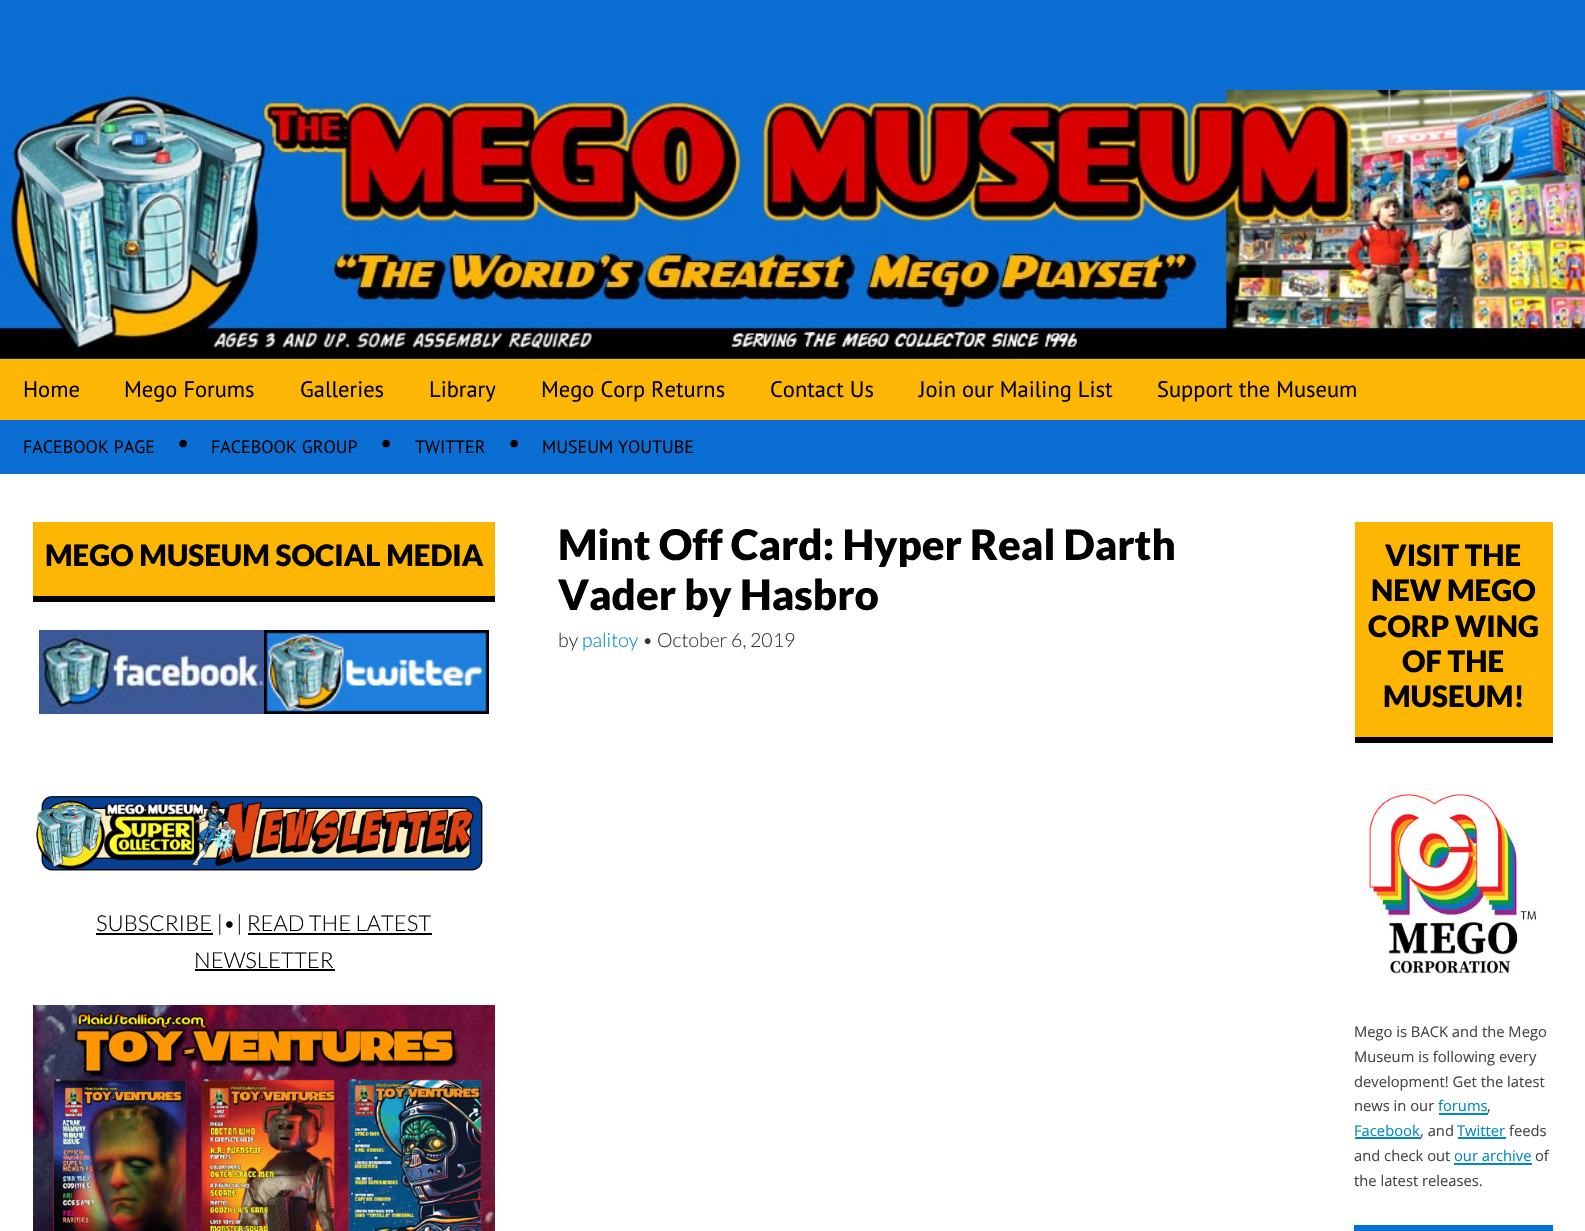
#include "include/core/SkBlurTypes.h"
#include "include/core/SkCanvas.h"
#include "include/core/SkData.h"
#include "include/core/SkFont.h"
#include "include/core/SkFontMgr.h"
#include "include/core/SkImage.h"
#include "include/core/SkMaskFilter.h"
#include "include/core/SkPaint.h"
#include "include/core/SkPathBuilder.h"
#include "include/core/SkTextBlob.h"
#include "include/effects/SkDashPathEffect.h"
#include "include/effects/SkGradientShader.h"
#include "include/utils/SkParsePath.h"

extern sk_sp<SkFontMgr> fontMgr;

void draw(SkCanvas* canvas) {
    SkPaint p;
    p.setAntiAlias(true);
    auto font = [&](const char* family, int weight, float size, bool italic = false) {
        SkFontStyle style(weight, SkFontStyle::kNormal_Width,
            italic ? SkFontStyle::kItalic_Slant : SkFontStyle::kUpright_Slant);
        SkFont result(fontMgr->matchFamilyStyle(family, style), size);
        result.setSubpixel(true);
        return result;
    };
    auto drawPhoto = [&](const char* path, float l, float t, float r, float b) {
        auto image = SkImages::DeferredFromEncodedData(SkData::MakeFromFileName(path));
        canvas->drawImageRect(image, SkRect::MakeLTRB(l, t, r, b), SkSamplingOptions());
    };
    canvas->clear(0xFFFFFFFF);
    p.setColor(0xFF0B6ED3);
    canvas->drawRect(SkRect::MakeLTRB(0, 0, 1585, 474), p);
    drawPhoto("media/1.png", 0, 90, 1585, 359);
    p.setColor(0xFFFDB604);
    canvas->drawRect(SkRect::MakeLTRB(0, 359, 1585, 420), p);
    auto font1 = font("PT Sans", 400, 22.5f);
    p.setColor(0xFF000000);
    {
        const struct { const char* s; float x, y; } items[] = {
            {"Home", 23, 397},
            {"Mego Forums", 124, 397},
            {"Galleries", 300, 397},
            {"Library", 429, 397},
            {"Mego Corp Returns", 541, 397},
            {"Contact Us", 770, 397},
            {"Join our Mailing List", 919, 397},
            {"Support the Museum", 1157, 397},
        };
        for (auto [s, x, y] : items) {
            canvas->drawString(s, x, y, font1, p);
        }
    }
    auto font2 = font("PT Sans", 400, 18);
    canvas->drawString("FACEBOOK PAGE", 23, 453, font2, p);
    auto font3 = font("PT Sans", 400, 27);
    canvas->drawString("•", 177, 452, font3, p);
    canvas->drawString("FACEBOOK GROUP", 211, 453, font2, p);
    canvas->drawString("•", 380, 452, font3, p);
    canvas->drawString("TWITTER", 415, 453, font2, p);
    canvas->drawString("•", 508, 452, font3, p);
    canvas->drawString("MUSEUM YOUTUBE", 542, 453, font2, p);
    p.setColor(0xFFFDB604);
    canvas->drawRect(SkRect::MakeLTRB(33, 522, 495, 596), p);
    p.setColor(0xFF000000);
    canvas->drawRect(SkRect::MakeLTRB(33, 596, 495, 602), p);
    auto font4 = font("Lato", 900, 29.4f);
    canvas->drawString("MEGO MUSEUM SOCIAL MEDIA", 45, 566, font4, p);
    drawPhoto("media/2.png", 39, 630, 264, 714);
    drawPhoto("media/3.png", 264, 630, 489, 714);
    drawPhoto("media/4.png", 36, 796, 483, 871);
    canvas->drawRect(SkRect::MakeLTRB(96, 933, 213, 935), p);
    auto font5 = font("Lato", 300, 22);
    canvas->drawString("SUBSCRIBE |•| READ THE LATEST", 96, 931, font5, p);
    canvas->drawString("NEWSLETTER", 194, 968, font5, p);
    canvas->drawRect(SkRect::MakeLTRB(248, 933, 432, 935), p);
    canvas->drawRect(SkRect::MakeLTRB(195, 969, 335, 971), p);
    drawPhoto("media/5.png", 33, 1005, 495, 1231);
    auto font6 = font("Lato", 900, 42);
    canvas->drawString("Mint Off Card: Hyper Real Darth", 558, 560, font6, p);
    canvas->drawString("Vader by Hasbro", 558, 610, font6, p);
    auto font7 = font("Lato", 300, 19.5f);
    p.setColor(0xFF333333);
    canvas->drawString("by", 558, 647, font7, p);
    p.setColor(0xFF0089C4);
    canvas->drawString("palitoy", 582, 647, font7, p);
    p.setColor(0xFF333333);
    canvas->drawString("• October 6, 2019", 642, 647, font7, p);
    p.setColor(0xFFFDB604);
    canvas->drawRect(SkRect::MakeLTRB(1355, 522, 1553, 737), p);
    p.setColor(0xFF000000);
    canvas->drawRect(SkRect::MakeLTRB(1355, 737, 1553, 743), p);
    {
        const struct { const char* s; float x, y; } items[] = {
            {"VISIT THE", 1385, 566},
            {"NEW MEGO", 1371, 601},
            {"CORP WING", 1368, 637},
            {"OF THE", 1402, 672},
            {"MUSEUM!", 1383, 707},
        };
        for (auto [s, x, y] : items) {
            canvas->drawString(s, x, y, font4, p);
        }
    }
    drawPhoto("media/6.png", 1367, 791, 1537, 976);
    auto font8 = font("Open Sans", 400, 14.75f);
    p.setColor(0xFF444444);
    {
        const struct { const char* s; float x, y; } items[] = {
            {"Mego is BACK and the Mego", 1354, 1037},
            {"Museum is following every", 1354, 1062},
            {"development! Get the latest", 1354, 1087},
            {"news in our", 1354, 1111},
        };
        for (auto [s, x, y] : items) {
            canvas->drawString(s, x, y, font8, p);
        }
    }
    p.setColor(0xFF0089C4);
    canvas->drawString("forums", 1438, 1111, font8, p);
    canvas->drawRect(SkRect::MakeLTRB(1439, 1113, 1488, 1115), p);
    p.setColor(0xFF444444);
    canvas->drawString(",", 1487, 1111, font8, p);
    p.setColor(0xFF0089C4);
    canvas->drawString("Facebook", 1354, 1136, font8, p);
    canvas->drawRect(SkRect::MakeLTRB(1355, 1137, 1421, 1139), p);
    p.setColor(0xFF444444);
    canvas->drawString(", and", 1420, 1136, font8, p);
    p.setColor(0xFF0089C4);
    canvas->drawString("Twitter", 1457, 1136, font8, p);
    canvas->drawRect(SkRect::MakeLTRB(1458, 1137, 1506, 1139), p);
    p.setColor(0xFF444444);
    canvas->drawString("feeds", 1509, 1136, font8, p);
    canvas->drawString("and check out", 1354, 1161, font8, p);
    p.setColor(0xFF0089C4);
    canvas->drawString("our archive", 1454, 1161, font8, p);
    canvas->drawRect(SkRect::MakeLTRB(1454, 1163, 1532, 1165), p);
    p.setColor(0xFF444444);
    canvas->drawString("of", 1535, 1161, font8, p);
    canvas->drawString("the latest releases.", 1354, 1186, font8, p);
    p.setColor(0xFF0172D2);
    canvas->drawRect(SkRect::MakeLTRB(1354, 1225, 1553, 1231), p);
}
